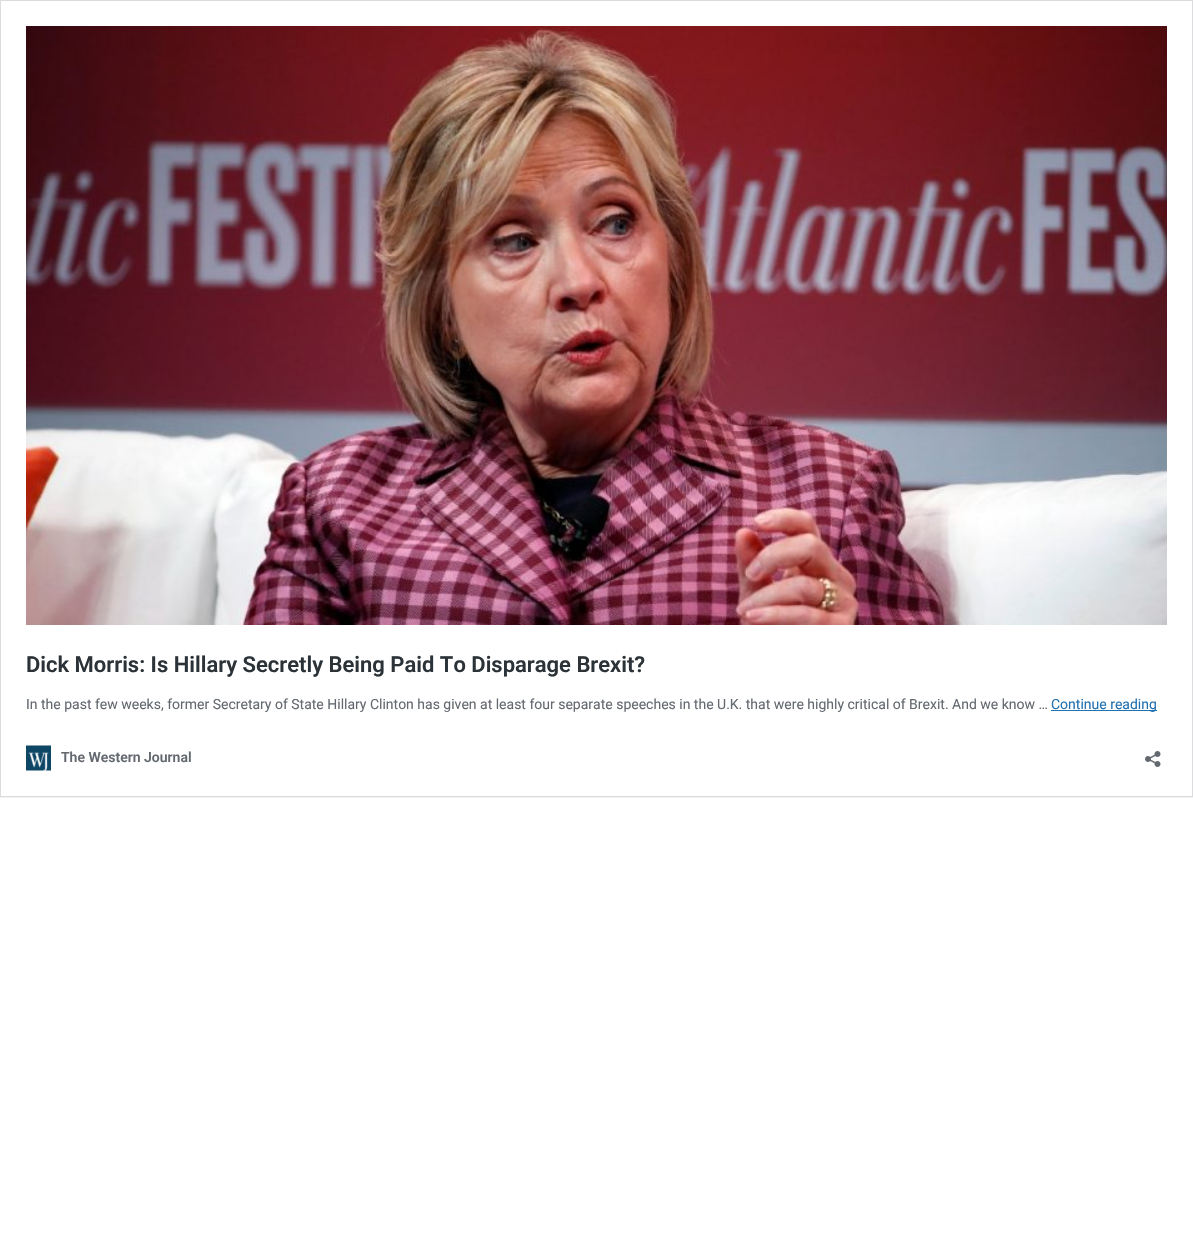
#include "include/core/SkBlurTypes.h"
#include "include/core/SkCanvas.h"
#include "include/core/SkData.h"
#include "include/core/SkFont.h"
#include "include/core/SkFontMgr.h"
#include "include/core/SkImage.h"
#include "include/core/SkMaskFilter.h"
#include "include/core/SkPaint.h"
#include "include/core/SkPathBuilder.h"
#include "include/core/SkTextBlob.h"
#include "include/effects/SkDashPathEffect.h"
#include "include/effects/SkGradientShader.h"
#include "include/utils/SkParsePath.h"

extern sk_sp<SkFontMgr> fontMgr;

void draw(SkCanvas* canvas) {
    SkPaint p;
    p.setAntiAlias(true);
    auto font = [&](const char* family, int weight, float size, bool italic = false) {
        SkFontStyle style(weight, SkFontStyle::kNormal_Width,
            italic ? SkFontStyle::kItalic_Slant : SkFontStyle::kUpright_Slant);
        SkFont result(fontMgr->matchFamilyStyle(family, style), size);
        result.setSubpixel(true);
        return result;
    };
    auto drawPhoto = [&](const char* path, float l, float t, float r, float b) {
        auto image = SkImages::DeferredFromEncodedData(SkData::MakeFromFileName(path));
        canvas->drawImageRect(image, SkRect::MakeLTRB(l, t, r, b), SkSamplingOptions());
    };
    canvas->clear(0xFFFFFFFF);
    canvas->save();
    canvas->clipRect(SkRect::MakeLTRB(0, 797, 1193, 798));
    p.setColor(0x0D000000);
    p.setMaskFilter(SkMaskFilter::MakeBlur(kNormal_SkBlurStyle, 0.5f));
    canvas->drawRect(SkRect::MakeLTRB(0, 1, 1193, 798), p);
    p.setMaskFilter(nullptr);
    canvas->restore();
    p.setStyle(SkPaint::kStroke_Style);
    p.setStrokeWidth(1);
    p.setColor(0xFFDCDCDE);
    canvas->drawRect(SkRect::MakeLTRB(0.5f, 0.5f, 1192.5f, 796.5f), p);
    drawPhoto("media/1.png", 26, 26, 1167, 625);
    auto font1 = font("Roboto", 600, 22);
    p.setStyle(SkPaint::kFill_Style);
    p.setColor(0xFF2C3338);
    canvas->drawString("Dick Morris: Is Hillary Secretly Being Paid To Disparage Brexit?", 26, 672, font1, p);
    auto font2 = font("Roboto", 400, 14);
    p.setColor(0xFF646970);
    canvas->drawString("In the past few weeks, former Secretary of State Hillary Clinton has given at least four separate speeches in the U.K. that were highly critical of Brexit. And we know …", 26, 709, font2, p);
    p.setColor(0xFF2271B1);
    canvas->drawRect(SkRect::MakeLTRB(1051, 710, 1157, 711), p);
    canvas->drawString("Continue reading", 1051, 709, font2, p);
    drawPhoto("media/2.png", 26, 745, 51, 771);
    auto font3 = font("Roboto", 600, 14);
    p.setColor(0xFF646970);
    canvas->drawString("The Western Journal", 61, 762, font3, p);
    drawPhoto("media/3.png", 1145, 751, 1161, 767);
}
